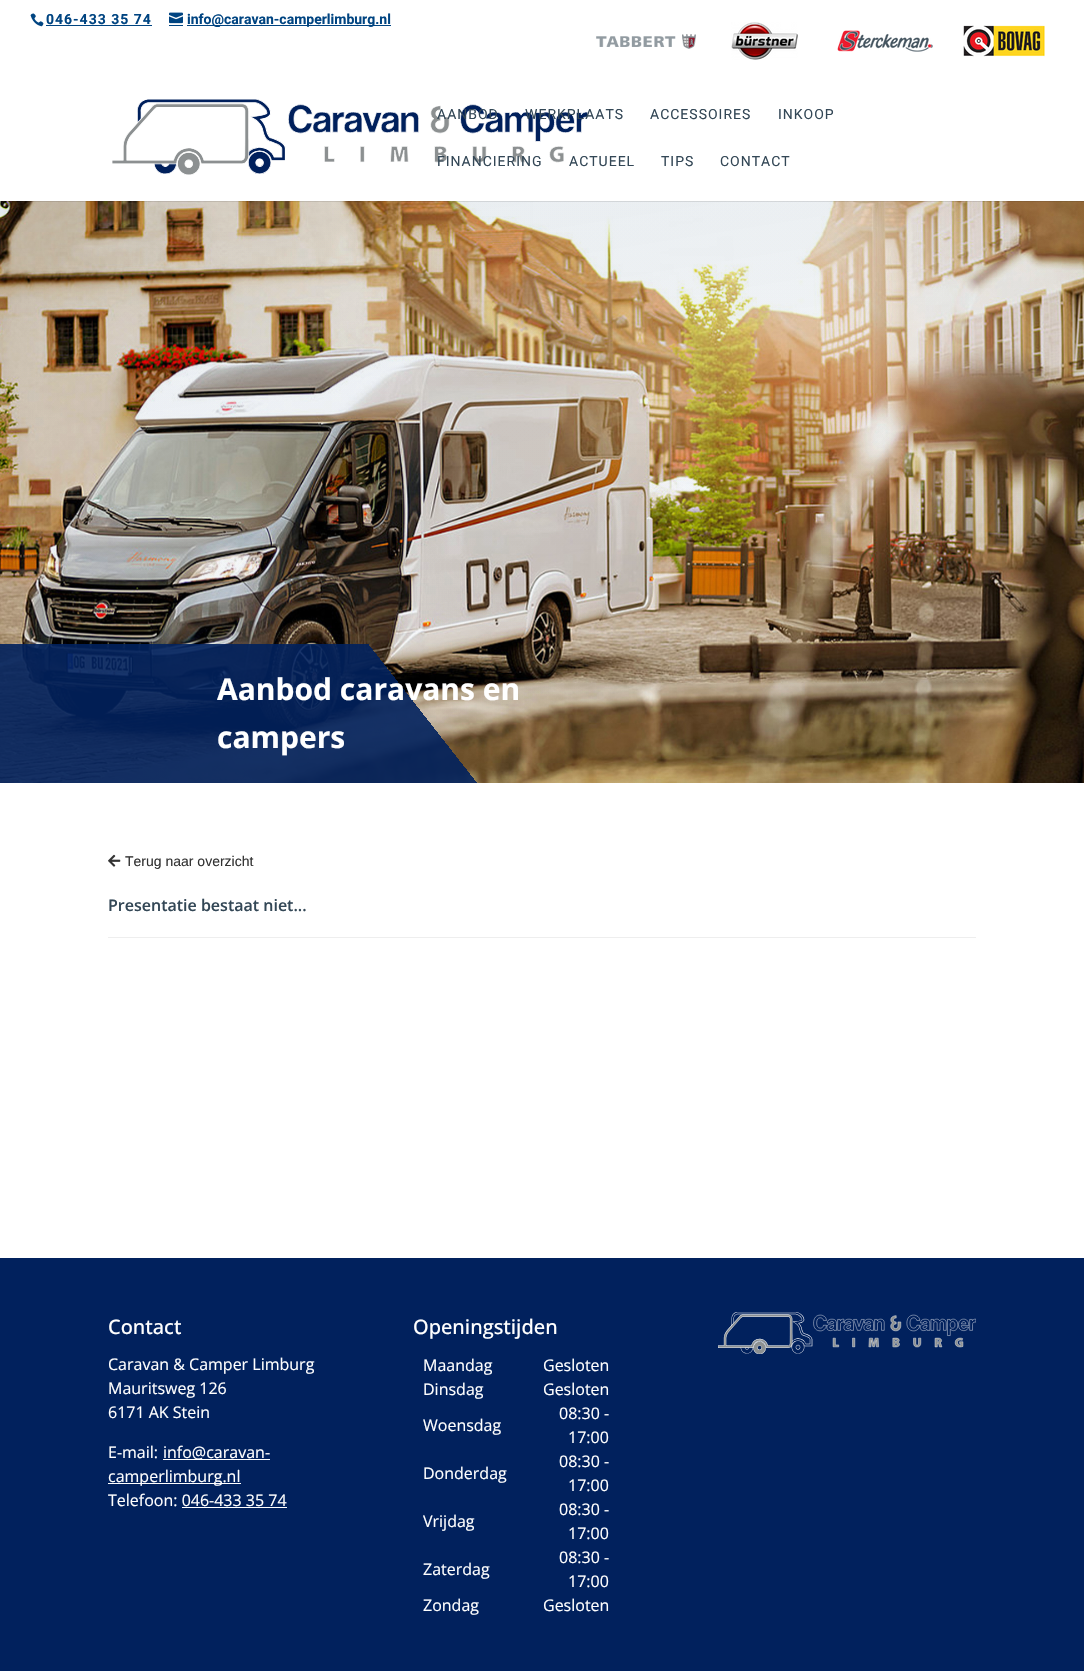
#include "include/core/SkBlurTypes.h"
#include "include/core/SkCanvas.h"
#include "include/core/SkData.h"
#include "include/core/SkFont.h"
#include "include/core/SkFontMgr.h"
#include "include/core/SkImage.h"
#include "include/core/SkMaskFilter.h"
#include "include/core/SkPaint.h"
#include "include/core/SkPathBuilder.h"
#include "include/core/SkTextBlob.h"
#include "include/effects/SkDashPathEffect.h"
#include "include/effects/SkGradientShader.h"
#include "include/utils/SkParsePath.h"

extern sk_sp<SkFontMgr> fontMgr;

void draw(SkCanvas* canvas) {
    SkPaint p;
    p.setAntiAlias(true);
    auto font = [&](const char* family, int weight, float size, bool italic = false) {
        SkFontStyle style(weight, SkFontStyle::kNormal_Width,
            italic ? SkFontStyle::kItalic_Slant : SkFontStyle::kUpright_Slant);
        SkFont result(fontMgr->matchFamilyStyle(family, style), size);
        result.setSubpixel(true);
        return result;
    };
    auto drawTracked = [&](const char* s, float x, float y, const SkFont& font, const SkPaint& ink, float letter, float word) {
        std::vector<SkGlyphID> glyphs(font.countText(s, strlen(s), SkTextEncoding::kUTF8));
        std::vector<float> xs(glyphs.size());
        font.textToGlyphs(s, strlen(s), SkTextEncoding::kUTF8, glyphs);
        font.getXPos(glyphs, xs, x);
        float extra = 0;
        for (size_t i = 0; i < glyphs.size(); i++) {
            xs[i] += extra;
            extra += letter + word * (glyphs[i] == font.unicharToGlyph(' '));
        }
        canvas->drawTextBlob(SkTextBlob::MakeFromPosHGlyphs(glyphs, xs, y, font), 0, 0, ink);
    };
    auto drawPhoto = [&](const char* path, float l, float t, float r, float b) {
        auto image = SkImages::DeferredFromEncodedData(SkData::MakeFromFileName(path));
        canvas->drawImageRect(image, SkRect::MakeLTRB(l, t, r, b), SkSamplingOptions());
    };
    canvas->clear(0xFFFFFFFF);
    drawPhoto("media/1.png", 30, 13, 44, 27);
    auto font1 = font("Roboto", 700, 14);
    p.setColor(0xFF004481);
    drawTracked("046-433 35 74", 46, 24, font1, p, 1, 0);
    canvas->drawRect(SkRect::MakeLTRB(46, 25, 152, 26), p);
    drawPhoto("media/2.png", 169, 12, 183, 24);
    canvas->drawRect(SkRect::MakeLTRB(187, 25, 391, 26), p);
    canvas->drawString("info@caravan-camperlimburg.nl", 187, 24, font1, p);
    canvas->drawRect(SkRect::MakeLTRB(169, 25, 183, 26), p);
    drawPhoto("media/3.png", 596, 34, 696, 49);
    drawPhoto("media/4.png", 731, 22, 798, 60);
    drawPhoto("media/5.png", 837, 30, 933, 52);
    drawPhoto("media/6.png", 963, 25, 1045, 57);
    drawPhoto("media/8.png", 0, 201, 1084, 783);
    p.setColor(0x1A000000);
    canvas->drawRect(SkRect::MakeLTRB(0, 201, 1084, 202), p);
    drawPhoto("media/7.png", 112, 99, 588, 175);
    auto font2 = font("Roboto", 400, 14);
    p.setColor(0xFF334756);
    {
        const struct { const char* s; float x, y; } items[] = {
            {"AANBOD", 437, 119},
            {"WERKPLAATS", 525, 119},
            {"ACCESSOIRES", 650, 119},
            {"INKOOP", 778, 119},
            {"FINANCIERING", 437, 166},
            {"ACTUEEL", 569, 166},
            {"TIPS", 661, 166},
            {"CONTACT", 720, 166},
        };
        for (auto [s, x, y] : items) {
            drawTracked(s, x, y, font2, p, 1, 0);
        }
    }
    auto font3 = font("Open Sans", 700, 30);
    p.setColor(0xFFFFFFFF);
    canvas->drawString("Aanbod caravans en", 217, 700, font3, p);
    canvas->drawString("campers", 217, 748, font3, p);
    drawPhoto("media/9.png", 108, 854, 121, 867);
    auto font4 = font("Liberation Sans", 400, 14);
    p.setColor(0xFF333333);
    canvas->drawString("Terug naar overzicht", 125, 866, font4, p);
    p.setColor(0xFFEEEEEE);
    canvas->drawRect(SkRect::MakeLTRB(108, 937, 976, 938), p);
    auto font5 = font("Open Sans", 600, 16);
    p.setColor(0xFF334756);
    canvas->drawString("Presentatie bestaat niet...", 108, 911, font5, p);
    p.setColor(0xFF01215D);
    canvas->drawRect(SkRect::MakeLTRB(0, 1258, 1084, 1671), p);
    auto font6 = font("Open Sans", 500, 20);
    p.setColor(0xFFFFFFFF);
    canvas->drawString("Contact", 108, 1334, font6, p);
    auto font7 = font("Open Sans", 400, 16);
    {
        const struct { const char* s; float x, y; } items[] = {
            {"Caravan & Camper Limburg", 108, 1370},
            {"Mauritsweg 126", 108, 1394},
            {"6171 AK Stein", 108, 1418},
            {"E-mail:", 108, 1458},
        };
        for (auto [s, x, y] : items) {
            canvas->drawString(s, x, y, font7, p);
        }
    }
    canvas->drawRect(SkRect::MakeLTRB(163, 1459, 270, 1460), p);
    canvas->drawString("info@caravan-", 163, 1458, font7, p);
    canvas->drawRect(SkRect::MakeLTRB(108, 1483, 241, 1484), p);
    canvas->drawString("camperlimburg.nl", 108, 1482, font7, p);
    canvas->drawString("Telefoon: 046-433 35 74", 108, 1506, font7, p);
    canvas->drawRect(SkRect::MakeLTRB(182, 1507, 287, 1508), p);
    canvas->drawString("Openingstijden", 413, 1334, font6, p);
    {
        const struct { const char* s; float x, y; } items[] = {
            {"Maandag", 423, 1371},
            {"Gesloten", 543, 1371},
            {"Dinsdag", 423, 1395},
            {"Gesloten", 543, 1395},
            {"Woensdag", 423, 1431},
            {"08:30 -", 559, 1419},
            {"17:00", 568, 1443},
            {"Donderdag", 423, 1479},
            {"08:30 -", 559, 1467},
            {"17:00", 568, 1491},
            {"Vrijdag", 423, 1527},
            {"08:30 -", 559, 1515},
            {"17:00", 568, 1539},
            {"Zaterdag", 423, 1575},
            {"08:30 -", 559, 1563},
            {"17:00", 568, 1587},
            {"Zondag", 423, 1611},
            {"Gesloten", 543, 1611},
        };
        for (auto [s, x, y] : items) {
            canvas->drawString(s, x, y, font7, p);
        }
    }
    drawPhoto("media/10.png", 718, 1312, 976, 1354);
}
